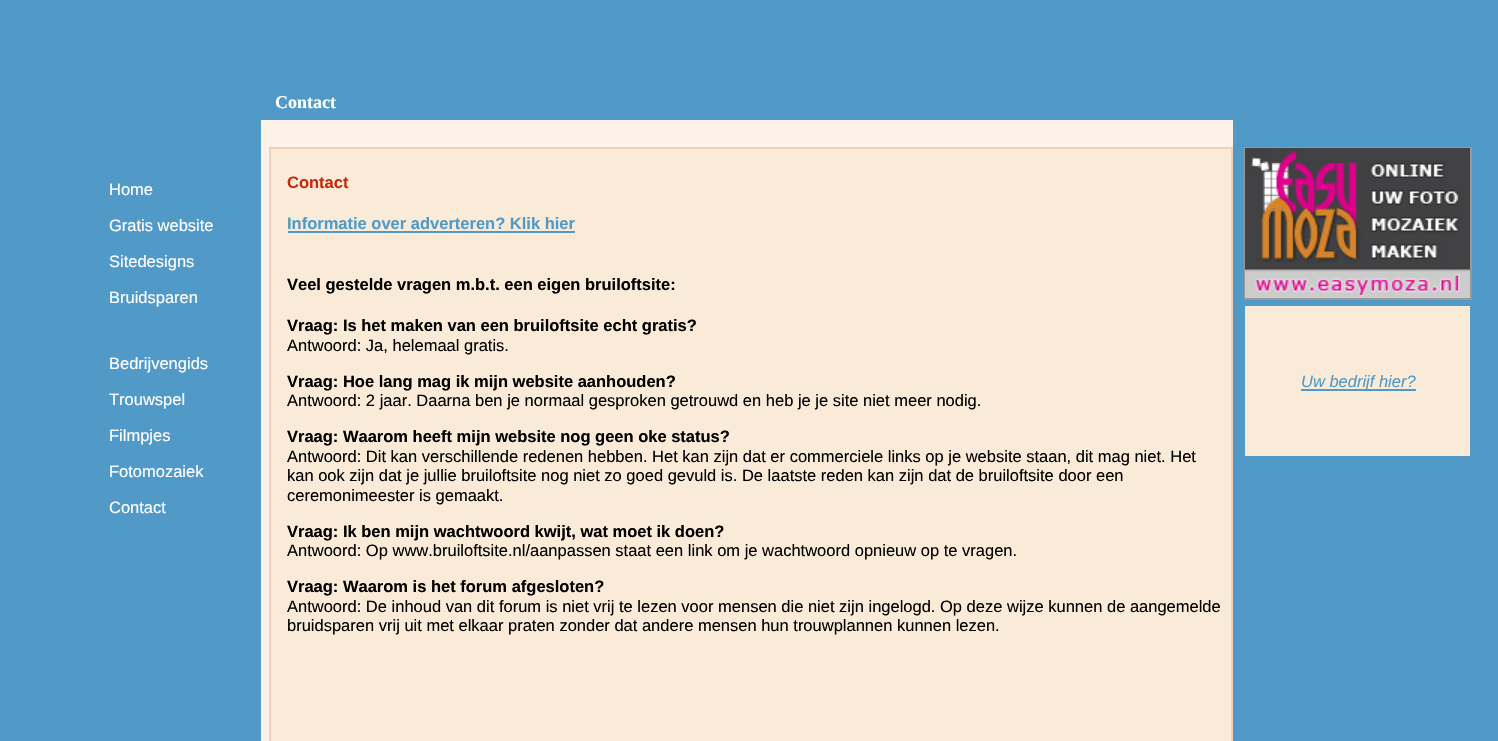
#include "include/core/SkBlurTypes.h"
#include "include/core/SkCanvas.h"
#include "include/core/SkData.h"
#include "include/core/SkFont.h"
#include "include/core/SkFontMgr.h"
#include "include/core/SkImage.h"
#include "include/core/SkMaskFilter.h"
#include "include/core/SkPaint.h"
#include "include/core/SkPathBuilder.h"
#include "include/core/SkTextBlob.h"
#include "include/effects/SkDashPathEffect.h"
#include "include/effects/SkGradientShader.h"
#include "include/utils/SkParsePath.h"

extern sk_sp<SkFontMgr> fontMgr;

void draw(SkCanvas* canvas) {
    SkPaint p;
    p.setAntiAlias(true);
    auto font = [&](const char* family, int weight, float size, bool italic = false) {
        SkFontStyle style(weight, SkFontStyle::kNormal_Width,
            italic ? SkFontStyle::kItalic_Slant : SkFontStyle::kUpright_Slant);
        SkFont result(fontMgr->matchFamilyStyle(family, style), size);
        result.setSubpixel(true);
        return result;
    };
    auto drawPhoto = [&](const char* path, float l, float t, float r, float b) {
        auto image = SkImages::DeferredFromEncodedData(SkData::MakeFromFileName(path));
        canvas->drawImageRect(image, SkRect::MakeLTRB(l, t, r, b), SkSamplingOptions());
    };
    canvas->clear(0xFF519AC7);
    auto font1 = font("Liberation Serif", 700, 18);
    p.setColor(0xFFFFFFFF);
    canvas->drawString("Contact", 275, 108, font1, p);
    auto font2 = font("Liberation Sans", 400, 16.5f);
    {
        const struct { const char* s; float x, y; } items[] = {
            {"Home", 109, 195},
            {"Gratis website", 109, 231},
            {"Sitedesigns", 109, 267},
            {"Bruidsparen", 109, 303},
            {"Bedrijvengids", 109, 369},
            {"Trouwspel", 109, 405},
            {"Filmpjes", 109, 441},
            {"Fotomozaiek", 109, 477},
            {"Contact", 109, 513},
        };
        for (auto [s, x, y] : items) {
            canvas->drawString(s, x, y, font2, p);
        }
    }
    p.setColor(0xFFFCF2E8);
    canvas->drawRect(SkRect::MakeLTRB(261, 120, 1233, 147), p);
    canvas->drawRect(SkRect::MakeLTRB(261, 147, 269, 741), p);
    p.setColor(0xFFFAEBD8);
    canvas->drawRect(SkRect::MakeLTRB(270, 148, 1232, 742), p);
    p.setStyle(SkPaint::kStroke_Style);
    p.setStrokeWidth(2);
    p.setColor(0xFFF0D0BB);
    canvas->drawRect(SkRect::MakeLTRB(270, 148, 1232, 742), p);
    auto font3 = font("Liberation Sans", 700, 16.5f);
    p.setStyle(SkPaint::kFill_Style);
    p.setColor(0xFFC82A10);
    canvas->drawString("Contact", 287, 188, font3, p);
    p.setColor(0xFF519AC7);
    canvas->drawString("Informatie over adverteren? Klik hier", 287, 229, font3, p);
    canvas->drawRect(SkRect::MakeLTRB(288, 231, 575, 233), p);
    p.setColor(0xFF000000);
    canvas->drawString("Veel gestelde vragen m.b.t. een eigen bruiloftsite:", 287, 290, font3, p);
    canvas->drawString("Vraag: Is het maken van een bruiloftsite echt gratis?", 287, 331, font3, p);
    canvas->drawString("Antwoord: Ja, helemaal gratis.", 287, 351, font2, p);
    canvas->drawString("Vraag: Hoe lang mag ik mijn website aanhouden?", 287, 387, font3, p);
    canvas->drawString("Antwoord: 2 jaar. Daarna ben je normaal gesproken getrouwd en heb je je site niet meer nodig.", 287, 406, font2, p);
    canvas->drawString("Vraag: Waarom heeft mijn website nog geen oke status?", 287, 442, font3, p);
    {
        const struct { const char* s; float x, y; } items[] = {
            {"Antwoord: Dit kan verschillende redenen hebben. Het kan zijn dat er commerciele links op je website staan, dit mag niet. Het", 287, 462},
            {"kan ook zijn dat je jullie bruiloftsite nog niet zo goed gevuld is. De laatste reden kan zijn dat de bruiloftsite door een", 287, 481},
            {"ceremonimeester is gemaakt.", 287, 501},
        };
        for (auto [s, x, y] : items) {
            canvas->drawString(s, x, y, font2, p);
        }
    }
    canvas->drawString("Vraag: Ik ben mijn wachtwoord kwijt, wat moet ik doen?", 287, 537, font3, p);
    canvas->drawString("Antwoord: Op www.bruiloftsite.nl/aanpassen staat een link om je wachtwoord opnieuw op te vragen.", 287, 556, font2, p);
    canvas->drawString("Vraag: Waarom is het forum afgesloten?", 287, 592, font3, p);
    canvas->drawString("Antwoord: De inhoud van dit forum is niet vrij te lezen voor mensen die niet zijn ingelogd. Op deze wijze kunnen de aangemelde", 287, 612, font2, p);
    canvas->drawString("bruidsparen vrij uit met elkaar praten zonder dat andere mensen hun trouwplannen kunnen lezen.", 287, 631, font2, p);
    p.setStyle(SkPaint::kStroke_Style);
    p.setColor(0xFF999999);
    canvas->drawRect(SkRect::MakeLTRB(1245, 148, 1471, 299), p);
    drawPhoto("media/1.png", 1245, 148, 1470, 298);
    p.setStyle(SkPaint::kFill_Style);
    p.setColor(0xFFFAEBD8);
    canvas->drawRect(SkRect::MakeLTRB(1245, 306, 1470, 456), p);
    p.setColor(0xFF519AC7);
    canvas->drawRect(SkRect::MakeLTRB(1301, 389, 1416, 391), p);
    auto font4 = font("Liberation Sans", 400, 16.5f, true);
    canvas->drawString("Uw bedrijf hier?", 1301, 387, font4, p);
}
